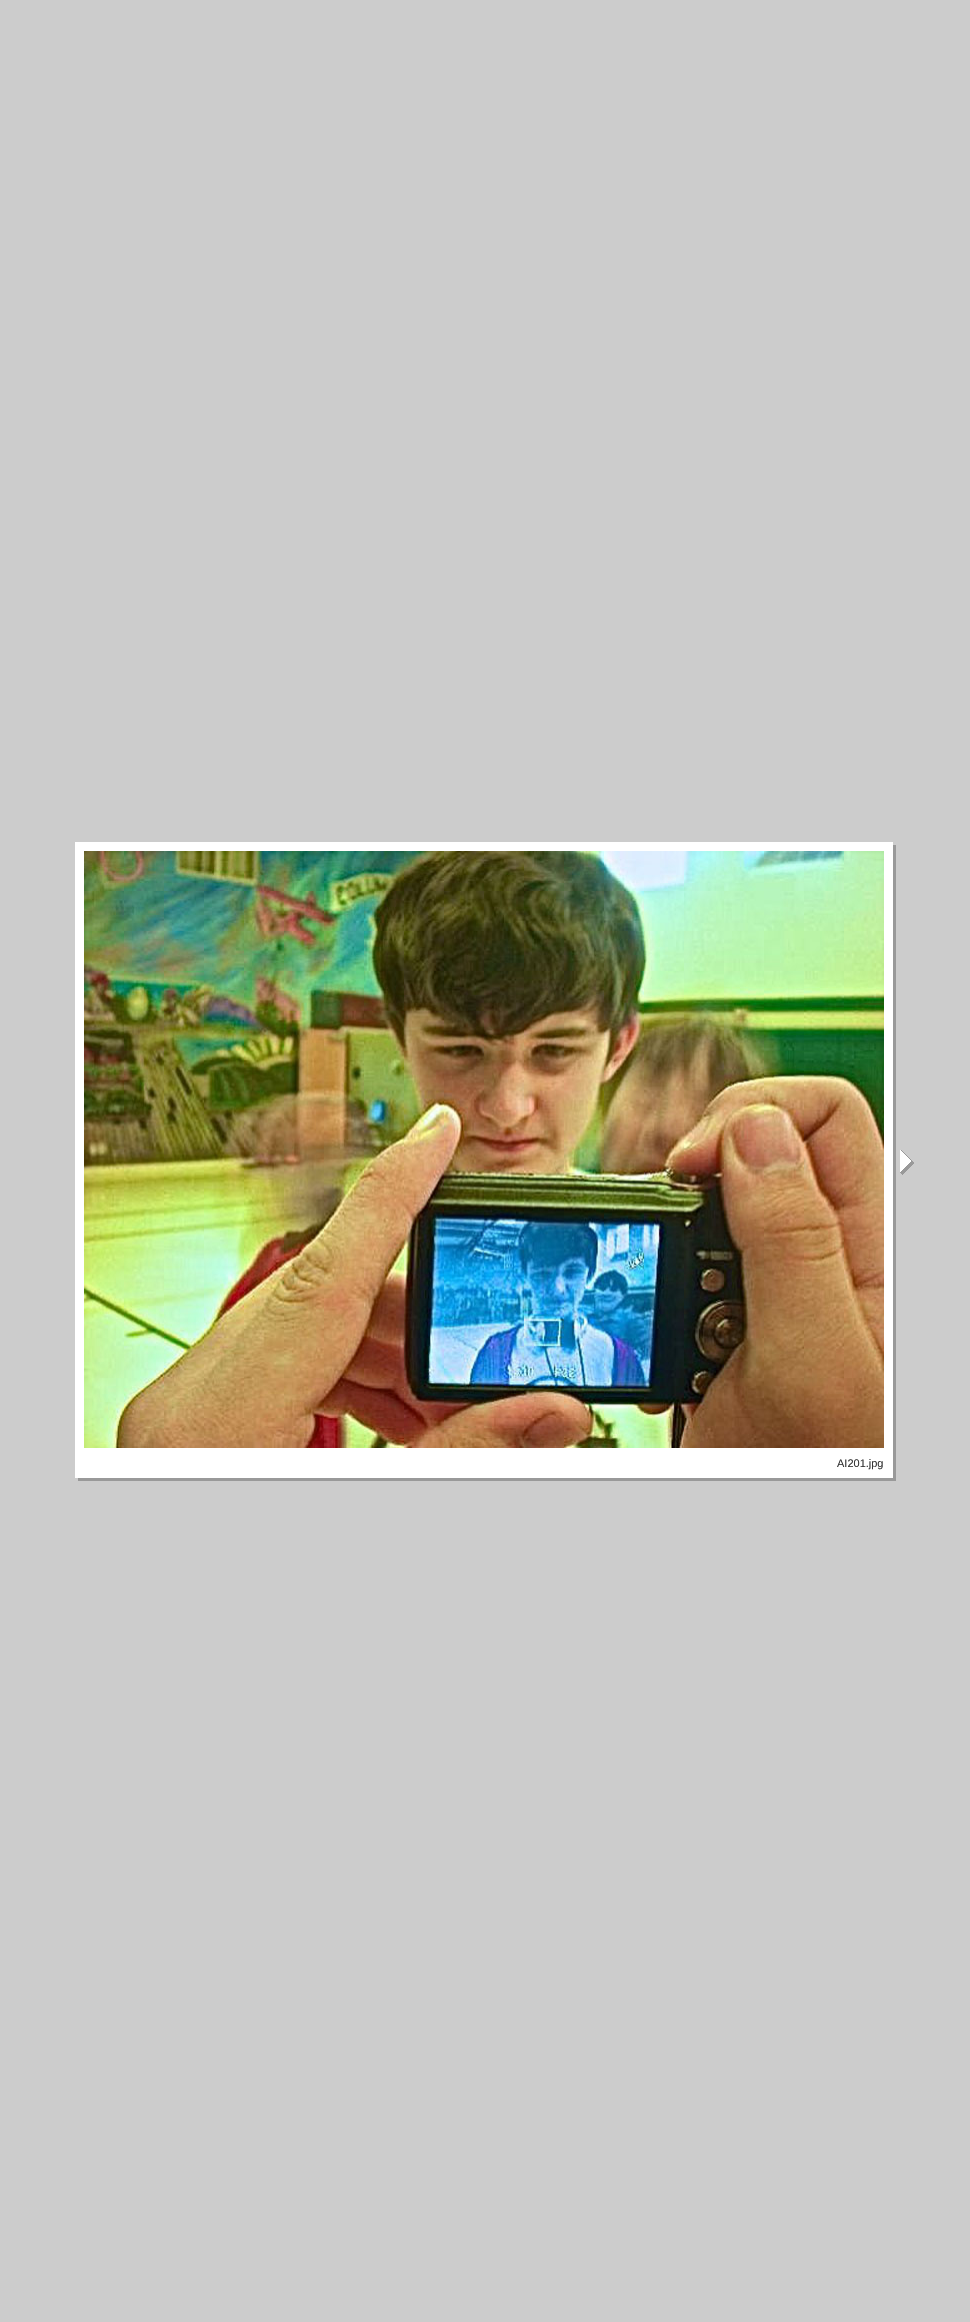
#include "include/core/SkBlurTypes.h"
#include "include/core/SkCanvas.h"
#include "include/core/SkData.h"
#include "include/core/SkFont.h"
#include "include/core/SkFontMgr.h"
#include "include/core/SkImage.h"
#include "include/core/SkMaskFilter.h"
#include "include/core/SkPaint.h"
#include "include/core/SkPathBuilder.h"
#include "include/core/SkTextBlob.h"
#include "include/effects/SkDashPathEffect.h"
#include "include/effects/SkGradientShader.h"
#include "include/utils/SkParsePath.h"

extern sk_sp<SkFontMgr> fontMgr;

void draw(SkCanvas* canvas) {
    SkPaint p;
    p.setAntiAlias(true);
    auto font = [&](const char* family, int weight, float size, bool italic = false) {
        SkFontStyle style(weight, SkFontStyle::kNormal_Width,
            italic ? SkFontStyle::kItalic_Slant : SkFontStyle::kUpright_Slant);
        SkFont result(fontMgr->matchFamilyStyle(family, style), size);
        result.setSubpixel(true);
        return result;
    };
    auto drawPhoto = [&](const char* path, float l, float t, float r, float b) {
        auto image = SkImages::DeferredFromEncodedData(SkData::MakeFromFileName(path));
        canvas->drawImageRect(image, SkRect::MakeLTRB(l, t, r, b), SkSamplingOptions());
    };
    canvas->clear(0xFFCCCCCC);
    drawPhoto("media/1.png", 900, 1150, 914, 1175);
    p.setColor(0xFFFFFFFF);
    canvas->drawRect(SkRect::MakeLTRB(75, 842, 893, 1478), p);
    drawPhoto("media/2.png", 84, 851, 884, 1448);
    auto font1 = font("Liberation Sans", 400, 11);
    p.setColor(0xFF333333);
    canvas->drawString("AI201.jpg", 837, 1467, font1, p);
    {
        const struct { float l, t, r, b; SkColor color; } items[] = {
            {893, 842, 896, 1478, 0xFF999999},
            {893, 842, 896, 845, 0xFFCCCCCC},
            {75, 1478, 896, 1481, 0xFF999999},
            {75, 1478, 78, 1481, 0xFFCCCCCC},
        };
        for (auto [l, t, r, b, color] : items) {
            p.setColor(color);
            canvas->drawRect(SkRect::MakeLTRB(l, t, r, b), p);
        }
    }
}
